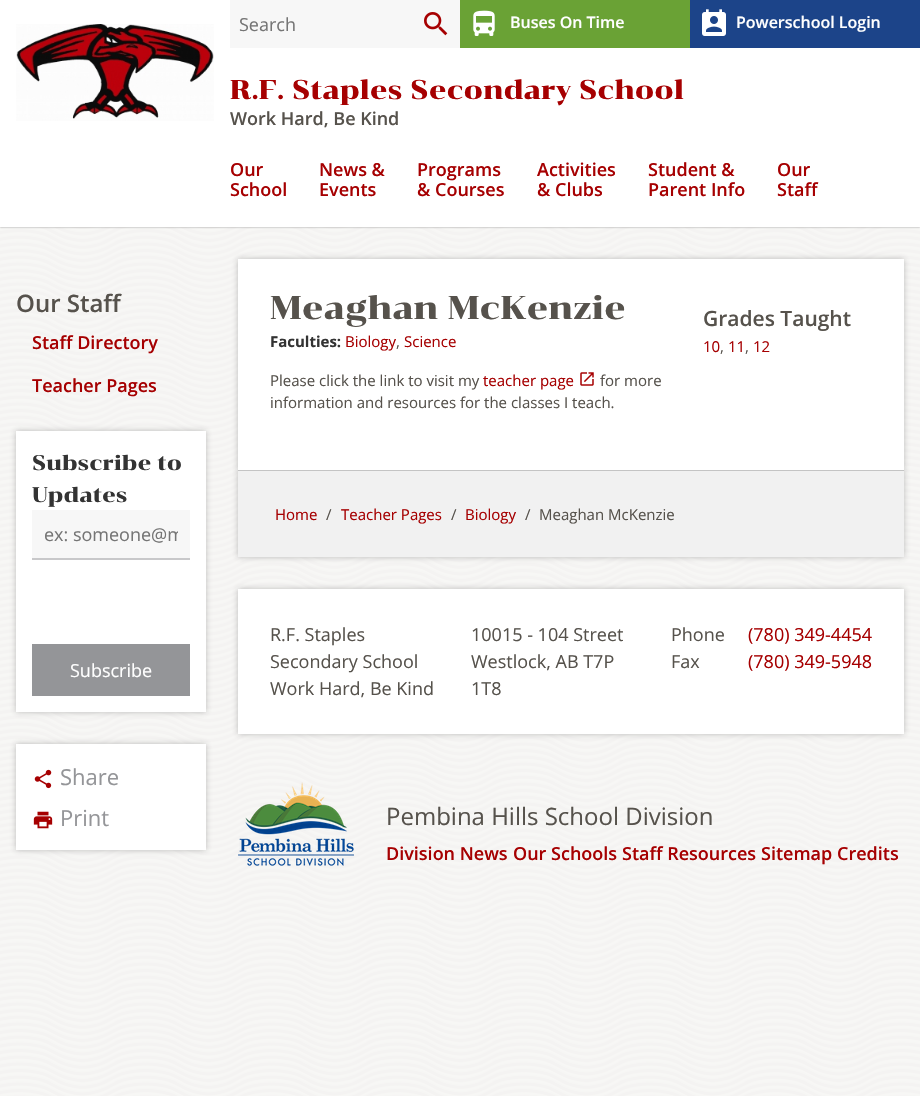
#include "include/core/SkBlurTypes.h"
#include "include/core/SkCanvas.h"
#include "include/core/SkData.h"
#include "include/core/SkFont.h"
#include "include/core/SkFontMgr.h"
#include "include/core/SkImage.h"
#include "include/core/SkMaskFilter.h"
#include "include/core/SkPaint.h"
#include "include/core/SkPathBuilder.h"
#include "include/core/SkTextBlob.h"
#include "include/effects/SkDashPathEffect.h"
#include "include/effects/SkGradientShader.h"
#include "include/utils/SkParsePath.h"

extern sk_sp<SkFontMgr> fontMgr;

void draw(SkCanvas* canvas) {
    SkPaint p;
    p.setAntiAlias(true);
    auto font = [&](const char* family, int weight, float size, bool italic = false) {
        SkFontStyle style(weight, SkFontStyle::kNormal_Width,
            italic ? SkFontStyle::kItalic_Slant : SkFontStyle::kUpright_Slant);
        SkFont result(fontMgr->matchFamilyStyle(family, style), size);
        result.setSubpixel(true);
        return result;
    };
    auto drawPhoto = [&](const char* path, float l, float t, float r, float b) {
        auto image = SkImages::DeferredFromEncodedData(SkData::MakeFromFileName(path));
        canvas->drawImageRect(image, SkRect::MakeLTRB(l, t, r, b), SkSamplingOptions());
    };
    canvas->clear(0xFFFFFFFF);
    drawPhoto("media/1.png", 0, 227, 920, 1096);
    p.setColor(0x80333333);
    p.setMaskFilter(SkMaskFilter::MakeBlur(kNormal_SkBlurStyle, 1));
    canvas->drawRect(SkRect::MakeLTRB(0, 0, 920, 227), p);
    p.setMaskFilter(nullptr);
    p.setColor(0xFFFFFFFF);
    canvas->drawRect(SkRect::MakeLTRB(0, 0, 920, 227), p);
    drawPhoto("media/2.png", 16, 24, 214, 121);
    p.setColor(0xFFF7F7F7);
    canvas->drawRect(SkRect::MakeLTRB(230, 0, 460, 48), p);
    auto font1 = font("Open Sans", 400, 18);
    p.setColor(0xFF757575);
    canvas->drawString("Search", 239, 31, font1, p);
    drawPhoto("media/3.png", 424, 12, 448, 36);
    p.setColor(0xFF6AA235);
    canvas->drawRect(SkRect::MakeLTRB(460, 0, 690, 48), p);
    drawPhoto("media/4.png", 473, 10, 495, 36);
    auto font2 = font("Open Sans", 600, 16);
    p.setColor(0xFFFFFFFF);
    canvas->drawString("Buses On Time", 510, 28, font2, p);
    p.setColor(0xFF1C4489);
    canvas->drawRect(SkRect::MakeLTRB(690, 0, 920, 48), p);
    drawPhoto("media/5.png", 702, 9, 726, 36);
    p.setColor(0xFFFFFFFF);
    canvas->drawString("Powerschool Login", 736, 28, font2, p);
    auto font3 = font("Chonburi", 400, 27);
    p.setColor(0xFFA60001);
    canvas->drawString("R.F. Staples Secondary School", 230, 99, font3, p);
    auto font4 = font("Open Sans", 600, 18);
    p.setColor(0xFF56524C);
    canvas->drawString("Work Hard, Be Kind", 230, 125, font4, p);
    p.setColor(0xFFA60001);
    {
        const struct { const char* s; float x, y; } items[] = {
            {"Our", 230, 176},
            {"School", 230, 196},
            {"News &", 319, 176},
            {"Events", 319, 196},
            {"Programs", 417, 176},
            {"& Courses", 417, 196},
            {"Activities", 537, 176},
            {"& Clubs", 537, 196},
            {"Student &", 648, 176},
            {"Parent Info", 648, 196},
            {"Our", 777, 176},
            {"Staff", 777, 196},
        };
        for (auto [s, x, y] : items) {
            canvas->drawString(s, x, y, font4, p);
        }
    }
    auto font5 = font("Open Sans", 600, 24);
    p.setColor(0xFF56524C);
    canvas->drawString("Our Staff", 16, 312, font5, p);
    p.setColor(0xFFA60001);
    canvas->drawString("Staff Directory", 32, 349, font4, p);
    canvas->drawString("Teacher Pages", 32, 392, font4, p);
    p.setColor(0x4D333333);
    p.setMaskFilter(SkMaskFilter::MakeBlur(kNormal_SkBlurStyle, 3));
    canvas->drawRect(SkRect::MakeLTRB(16, 431, 206, 712), p);
    p.setMaskFilter(nullptr);
    p.setColor(0xFFFFFFFF);
    canvas->drawRect(SkRect::MakeLTRB(16, 431, 206, 712), p);
    auto font6 = font("Chonburi", 400, 21);
    p.setColor(0xFF333333);
    canvas->drawString("Subscribe to", 32, 470, font6, p);
    canvas->drawString("Updates", 32, 502, font6, p);
    p.setColor(0xFFF7F7F7);
    canvas->drawRect(SkRect::MakeLTRB(32, 510, 190, 558), p);
    p.setColor(0xFFC8C8CA);
    canvas->drawRect(SkRect::MakeLTRB(32, 558, 190, 560), p);
    canvas->save();
    canvas->clipRect(SkRect::MakeLTRB(44, 522, 178, 546));
    p.setColor(0xFF757575);
    canvas->drawString("ex: someone@m", 44, 541, font1, p);
    canvas->restore();
    p.setColor(0xFF949598);
    canvas->drawRect(SkRect::MakeLTRB(32, 644, 190, 696), p);
    p.setColor(0xFFFFFFFF);
    canvas->drawString("Subscribe", 70, 677, font1, p);
    p.setColor(0x4D333333);
    p.setMaskFilter(SkMaskFilter::MakeBlur(kNormal_SkBlurStyle, 3));
    canvas->drawRect(SkRect::MakeLTRB(16, 744, 206, 850), p);
    p.setMaskFilter(nullptr);
    p.setColor(0xFFFFFFFF);
    canvas->drawRect(SkRect::MakeLTRB(16, 744, 206, 850), p);
    drawPhoto("media/6.png", 34, 769, 52, 789);
    auto font7 = font("Open Sans", 400, 22);
    p.setColor(0xFF949598);
    canvas->drawString("Share", 60, 785, font7, p);
    drawPhoto("media/7.png", 33, 811, 53, 829);
    canvas->drawString("Print", 60, 826, font7, p);
    p.setColor(0x4D333333);
    p.setMaskFilter(SkMaskFilter::MakeBlur(kNormal_SkBlurStyle, 3));
    canvas->drawRect(SkRect::MakeLTRB(238, 259, 904, 470), p);
    p.setMaskFilter(nullptr);
    p.setMaskFilter(SkMaskFilter::MakeBlur(kNormal_SkBlurStyle, 3));
    canvas->drawRect(SkRect::MakeLTRB(238, 471, 904, 557), p);
    p.setMaskFilter(nullptr);
    p.setColor(0xFFFFFFFF);
    canvas->drawRect(SkRect::MakeLTRB(238, 259, 904, 470), p);
    auto font8 = font("Chonburi", 400, 33);
    p.setColor(0xFF56524C);
    canvas->drawString("Meaghan McKenzie", 270, 319, font8, p);
    auto font9 = font("Open Sans", 600, 21);
    canvas->drawString("Grades Taught", 703, 326, font9, p);
    auto font10 = font("Open Sans", 400, 15);
    p.setColor(0xFFA60001);
    canvas->drawString("10", 703, 352, font10, p);
    p.setColor(0xFF56524C);
    canvas->drawString(",", 720, 352, font10, p);
    p.setColor(0xFFA60001);
    canvas->drawString("11", 728, 352, font10, p);
    p.setColor(0xFF56524C);
    canvas->drawString(",", 745, 352, font10, p);
    p.setColor(0xFFA60001);
    canvas->drawString("12", 753, 352, font10, p);
    auto font11 = font("Open Sans", 700, 15);
    p.setColor(0xFF333333);
    canvas->drawString("Faculties:", 270, 347, font11, p);
    p.setColor(0xFFA60001);
    canvas->drawString("Biology", 345, 347, font10, p);
    p.setColor(0xFF56524C);
    canvas->drawString(",", 396, 347, font10, p);
    p.setColor(0xFFA60001);
    canvas->drawString("Science", 404, 347, font10, p);
    p.setColor(0xFF56524C);
    canvas->drawString("Please click the link to visit my", 270, 386, font10, p);
    p.setColor(0xFFA60001);
    canvas->drawString("teacher page", 483, 386, font10, p);
    drawPhoto("media/8.png", 580, 372, 594, 386);
    p.setColor(0xFF56524C);
    canvas->drawString("for more", 600, 386, font10, p);
    canvas->drawString("information and resources for the classes I teach.", 270, 408, font10, p);
    p.setColor(0xFFF1F1F1);
    canvas->drawRect(SkRect::MakeLTRB(238, 471, 904, 557), p);
    p.setColor(0xFFC4C4C4);
    canvas->drawRect(SkRect::MakeLTRB(238, 470, 904, 471), p);
    p.setColor(0xFFA60001);
    canvas->drawString("Home", 275, 520, font10, p);
    p.setColor(0xFF56524C);
    canvas->drawString("/", 326, 520, font10, p);
    p.setColor(0xFFA60001);
    canvas->drawString("Teacher Pages", 341, 520, font10, p);
    p.setColor(0xFF56524C);
    canvas->drawString("/", 451, 520, font10, p);
    p.setColor(0xFFA60001);
    canvas->drawString("Biology", 465, 520, font10, p);
    p.setColor(0xFF56524C);
    canvas->drawString("/", 525, 520, font10, p);
    canvas->drawString("Meaghan McKenzie", 539, 520, font10, p);
    p.setColor(0x4D333333);
    p.setMaskFilter(SkMaskFilter::MakeBlur(kNormal_SkBlurStyle, 3));
    canvas->drawRect(SkRect::MakeLTRB(238, 589, 904, 734), p);
    p.setMaskFilter(nullptr);
    p.setColor(0xFFFFFFFF);
    canvas->drawRect(SkRect::MakeLTRB(238, 589, 904, 734), p);
    p.setColor(0xFF56524C);
    {
        const struct { const char* s; float x, y; } items[] = {
            {"R.F. Staples", 270, 641},
            {"Secondary School", 270, 668},
            {"Work Hard, Be Kind", 270, 695},
            {"10015 - 104 Street", 471, 641},
            {"Westlock, AB T7P", 471, 668},
            {"1T8", 471, 695},
            {"Phone", 671, 641},
        };
        for (auto [s, x, y] : items) {
            canvas->drawString(s, x, y, font1, p);
        }
    }
    p.setColor(0xFFA60001);
    canvas->drawString("(780) 349-4454", 748, 641, font1, p);
    p.setColor(0xFF56524C);
    canvas->drawString("Fax", 671, 668, font1, p);
    p.setColor(0xFFA60001);
    canvas->drawString("(780) 349-5948", 748, 668, font1, p);
    drawPhoto("media/9.png", 238, 782, 354, 866);
    auto font12 = font("Open Sans", 400, 24);
    p.setColor(0xFF56524C);
    canvas->drawString("Pembina Hills School Division", 386, 825, font12, p);
    p.setColor(0xFFA60001);
    {
        const struct { const char* s; float x, y; } items[] = {
            {"Division News", 386, 860},
            {"Our Schools", 513, 860},
            {"Staff Resources", 622, 860},
            {"Sitemap", 761, 860},
            {"Credits", 837, 860},
        };
        for (auto [s, x, y] : items) {
            canvas->drawString(s, x, y, font4, p);
        }
    }
}
